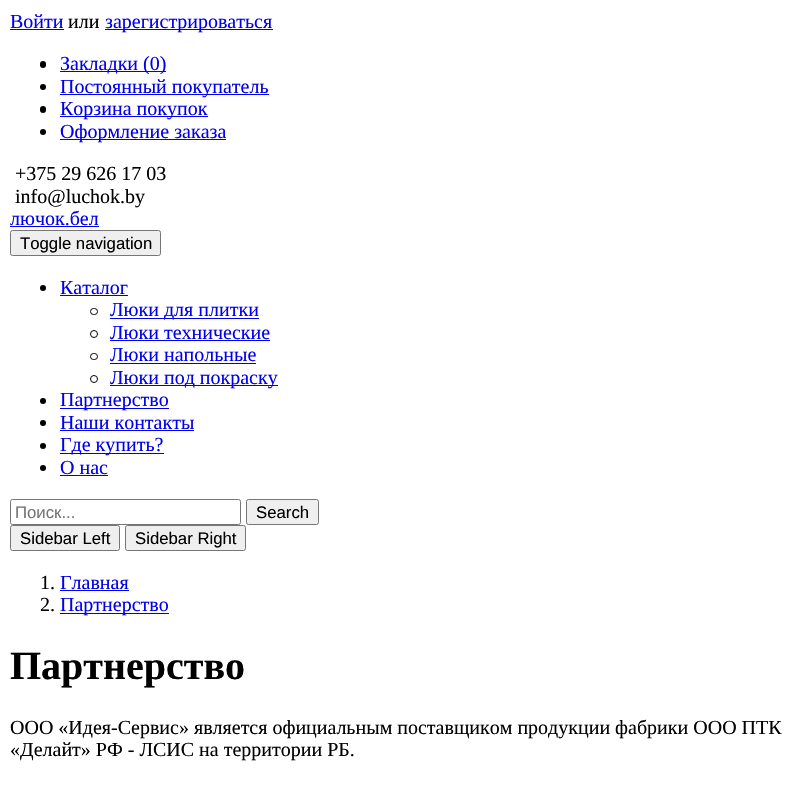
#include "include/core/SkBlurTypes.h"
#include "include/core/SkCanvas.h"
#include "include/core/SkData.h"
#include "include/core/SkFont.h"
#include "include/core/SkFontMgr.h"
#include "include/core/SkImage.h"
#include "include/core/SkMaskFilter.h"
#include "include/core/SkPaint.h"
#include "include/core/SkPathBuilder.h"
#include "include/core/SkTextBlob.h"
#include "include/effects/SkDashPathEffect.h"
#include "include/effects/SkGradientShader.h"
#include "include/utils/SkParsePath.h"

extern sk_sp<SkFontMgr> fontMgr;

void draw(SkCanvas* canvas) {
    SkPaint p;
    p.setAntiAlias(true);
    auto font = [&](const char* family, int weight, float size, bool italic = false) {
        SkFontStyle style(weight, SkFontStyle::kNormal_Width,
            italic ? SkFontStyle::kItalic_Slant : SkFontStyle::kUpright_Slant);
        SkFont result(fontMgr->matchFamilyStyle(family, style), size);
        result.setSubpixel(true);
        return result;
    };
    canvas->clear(0xFFFFFFFF);
    auto font1 = font("Liberation Serif", 400, 20);
    p.setColor(0xFF0000EE);
    canvas->drawString("Войти", 10, 28, font1, p);
    canvas->drawRect(SkRect::MakeLTRB(10, 29, 64, 30), p);
    p.setColor(0xFF000000);
    canvas->drawString("или", 68, 28, font1, p);
    p.setColor(0xFF0000EE);
    canvas->drawRect(SkRect::MakeLTRB(105, 29, 273, 30), p);
    canvas->drawString("зарегистрироваться", 105, 28, font1, p);
    p.setColor(0xFF000000);
    canvas->drawRoundRect(SkRect::MakeLTRB(40, 61, 46, 68), 3, 3, p);
    p.setColor(0xFF0000EE);
    canvas->drawRect(SkRect::MakeLTRB(60, 71, 166, 72), p);
    canvas->drawString("Закладки (0)", 60, 70, font1, p);
    p.setColor(0xFF000000);
    canvas->drawCircle(43, 87, 3, p);
    p.setColor(0xFF0000EE);
    canvas->drawRect(SkRect::MakeLTRB(60, 94, 269, 95), p);
    canvas->drawString("Постоянный покупатель", 60, 93, font1, p);
    p.setColor(0xFF000000);
    canvas->drawRoundRect(SkRect::MakeLTRB(40, 106, 46, 113), 3, 3, p);
    p.setColor(0xFF0000EE);
    canvas->drawRect(SkRect::MakeLTRB(60, 116, 208, 117), p);
    canvas->drawString("Корзина покупок", 60, 115, font1, p);
    p.setColor(0xFF000000);
    canvas->drawCircle(43, 132, 3, p);
    p.setColor(0xFF0000EE);
    canvas->drawRect(SkRect::MakeLTRB(60, 139, 226, 140), p);
    canvas->drawString("Оформление заказа", 60, 138, font1, p);
    p.setColor(0xFF000000);
    canvas->drawString("+375 29 626 17 03", 15, 180, font1, p);
    canvas->drawString("info@luchok.by", 15, 203, font1, p);
    p.setColor(0xFF0000EE);
    canvas->drawString("лючок.бел", 10, 225, font1, p);
    canvas->drawRect(SkRect::MakeLTRB(10, 226, 99, 227), p);
    p.setColor(0xFFEFEFEF);
    canvas->drawRoundRect(SkRect::MakeLTRB(10.5f, 230.5f, 160.5f, 255.5f), 2, 2, p);
    p.setStyle(SkPaint::kStroke_Style);
    p.setStrokeWidth(1);
    p.setColor(0xFF767676);
    canvas->drawRoundRect(SkRect::MakeLTRB(10.5f, 230.5f, 160.5f, 255.5f), 2, 2, p);
    auto font2 = font("Liberation Sans", 400, 16.75f);
    p.setStyle(SkPaint::kFill_Style);
    p.setColor(0xFF000000);
    canvas->drawString("Toggle navigation", 20, 249, font2, p);
    canvas->drawCircle(43, 288, 3, p);
    p.setColor(0xFF0000EE);
    canvas->drawString("Каталог", 60, 294, font1, p);
    canvas->drawRect(SkRect::MakeLTRB(60, 295, 128, 296), p);
    p.setStyle(SkPaint::kStroke_Style);
    p.setColor(0xFF000000);
    canvas->drawRoundRect(SkRect::MakeLTRB(90.5f, 308.5f, 97.5f, 314.5f), 3, 3, p);
    p.setStyle(SkPaint::kFill_Style);
    p.setColor(0xFF0000EE);
    canvas->drawRect(SkRect::MakeLTRB(110, 318, 259, 319), p);
    canvas->drawString("Люки для плитки", 110, 316, font1, p);
    p.setStyle(SkPaint::kStroke_Style);
    p.setColor(0xFF000000);
    canvas->drawCircle(94, 334, 3.5f, p);
    p.setStyle(SkPaint::kFill_Style);
    p.setColor(0xFF0000EE);
    canvas->drawString("Люки технические", 110, 339, font1, p);
    canvas->drawRect(SkRect::MakeLTRB(110, 340, 270, 341), p);
    p.setStyle(SkPaint::kStroke_Style);
    p.setColor(0xFF000000);
    canvas->drawRoundRect(SkRect::MakeLTRB(90.5f, 353.5f, 97.5f, 359.5f), 3, 3, p);
    p.setStyle(SkPaint::kFill_Style);
    p.setColor(0xFF0000EE);
    canvas->drawString("Люки напольные", 110, 361, font1, p);
    canvas->drawRect(SkRect::MakeLTRB(110, 363, 256, 364), p);
    p.setStyle(SkPaint::kStroke_Style);
    p.setColor(0xFF000000);
    canvas->drawCircle(94, 379, 3.5f, p);
    p.setStyle(SkPaint::kFill_Style);
    p.setColor(0xFF0000EE);
    canvas->drawRect(SkRect::MakeLTRB(110, 385, 278, 386), p);
    canvas->drawString("Люки под покраску", 110, 384, font1, p);
    p.setColor(0xFF000000);
    canvas->drawCircle(43, 401, 3, p);
    p.setColor(0xFF0000EE);
    canvas->drawRect(SkRect::MakeLTRB(60, 408, 169, 409), p);
    canvas->drawString("Партнерство", 60, 406, font1, p);
    p.setColor(0xFF000000);
    canvas->drawCircle(43, 423, 3, p);
    p.setColor(0xFF0000EE);
    canvas->drawString("Наши контакты", 60, 429, font1, p);
    canvas->drawRect(SkRect::MakeLTRB(60, 430, 194, 431), p);
    p.setColor(0xFF000000);
    canvas->drawCircle(43, 446, 3, p);
    p.setColor(0xFF0000EE);
    canvas->drawRect(SkRect::MakeLTRB(60, 453, 164, 454), p);
    canvas->drawString("Где купить?", 60, 451, font1, p);
    p.setColor(0xFF000000);
    canvas->drawCircle(43, 468, 3, p);
    p.setColor(0xFF0000EE);
    canvas->drawString("О нас", 60, 474, font1, p);
    canvas->drawRect(SkRect::MakeLTRB(60, 475, 108, 476), p);
    p.setStyle(SkPaint::kStroke_Style);
    p.setColor(0xFF767676);
    canvas->drawRoundRect(SkRect::MakeLTRB(10.5f, 499.5f, 240.5f, 524.5f), 2, 2, p);
    p.setStyle(SkPaint::kFill_Style);
    p.setColor(0xFF757575);
    canvas->drawString("Поиск...", 15, 518, font2, p);
    p.setColor(0xFFEFEFEF);
    canvas->drawRoundRect(SkRect::MakeLTRB(246.5f, 499.5f, 318.5f, 524.5f), 2, 2, p);
    p.setStyle(SkPaint::kStroke_Style);
    p.setColor(0xFF767676);
    canvas->drawRoundRect(SkRect::MakeLTRB(246.5f, 499.5f, 318.5f, 524.5f), 2, 2, p);
    p.setStyle(SkPaint::kFill_Style);
    p.setColor(0xFF000000);
    canvas->drawString("Search", 256, 518, font2, p);
    p.setColor(0xFFEFEFEF);
    canvas->drawRoundRect(SkRect::MakeLTRB(10.5f, 525.5f, 119.5f, 550.5f), 2, 2, p);
    p.setStyle(SkPaint::kStroke_Style);
    p.setColor(0xFF767676);
    canvas->drawRoundRect(SkRect::MakeLTRB(10.5f, 525.5f, 119.5f, 550.5f), 2, 2, p);
    p.setStyle(SkPaint::kFill_Style);
    p.setColor(0xFF000000);
    canvas->drawString("Sidebar Left", 20, 544, font2, p);
    p.setColor(0xFFEFEFEF);
    canvas->drawRoundRect(SkRect::MakeLTRB(125.5f, 525.5f, 245.5f, 550.5f), 2, 2, p);
    p.setStyle(SkPaint::kStroke_Style);
    p.setColor(0xFF767676);
    canvas->drawRoundRect(SkRect::MakeLTRB(125.5f, 525.5f, 245.5f, 550.5f), 2, 2, p);
    p.setStyle(SkPaint::kFill_Style);
    p.setColor(0xFF000000);
    canvas->drawString("Sidebar Right", 135, 544, font2, p);
    canvas->drawString("1.", 40, 589, font1, p);
    p.setColor(0xFF0000EE);
    canvas->drawString("Главная", 60, 589, font1, p);
    canvas->drawRect(SkRect::MakeLTRB(60, 590, 129, 591), p);
    p.setColor(0xFF000000);
    canvas->drawString("2.", 40, 611, font1, p);
    p.setColor(0xFF0000EE);
    canvas->drawRect(SkRect::MakeLTRB(60, 613, 169, 614), p);
    canvas->drawString("Партнерство", 60, 611, font1, p);
    auto font3 = font("Liberation Serif", 700, 40);
    p.setColor(0xFF000000);
    canvas->drawString("Партнерство", 10, 679, font3, p);
    canvas->drawString("ООО «Идея-Сервис» является официальным поставщиком продукции фабрики ООО ПТК", 10, 734, font1, p);
    canvas->drawString("«Делайт» РФ - ЛСИС на территории РБ.", 10, 756, font1, p);
}
